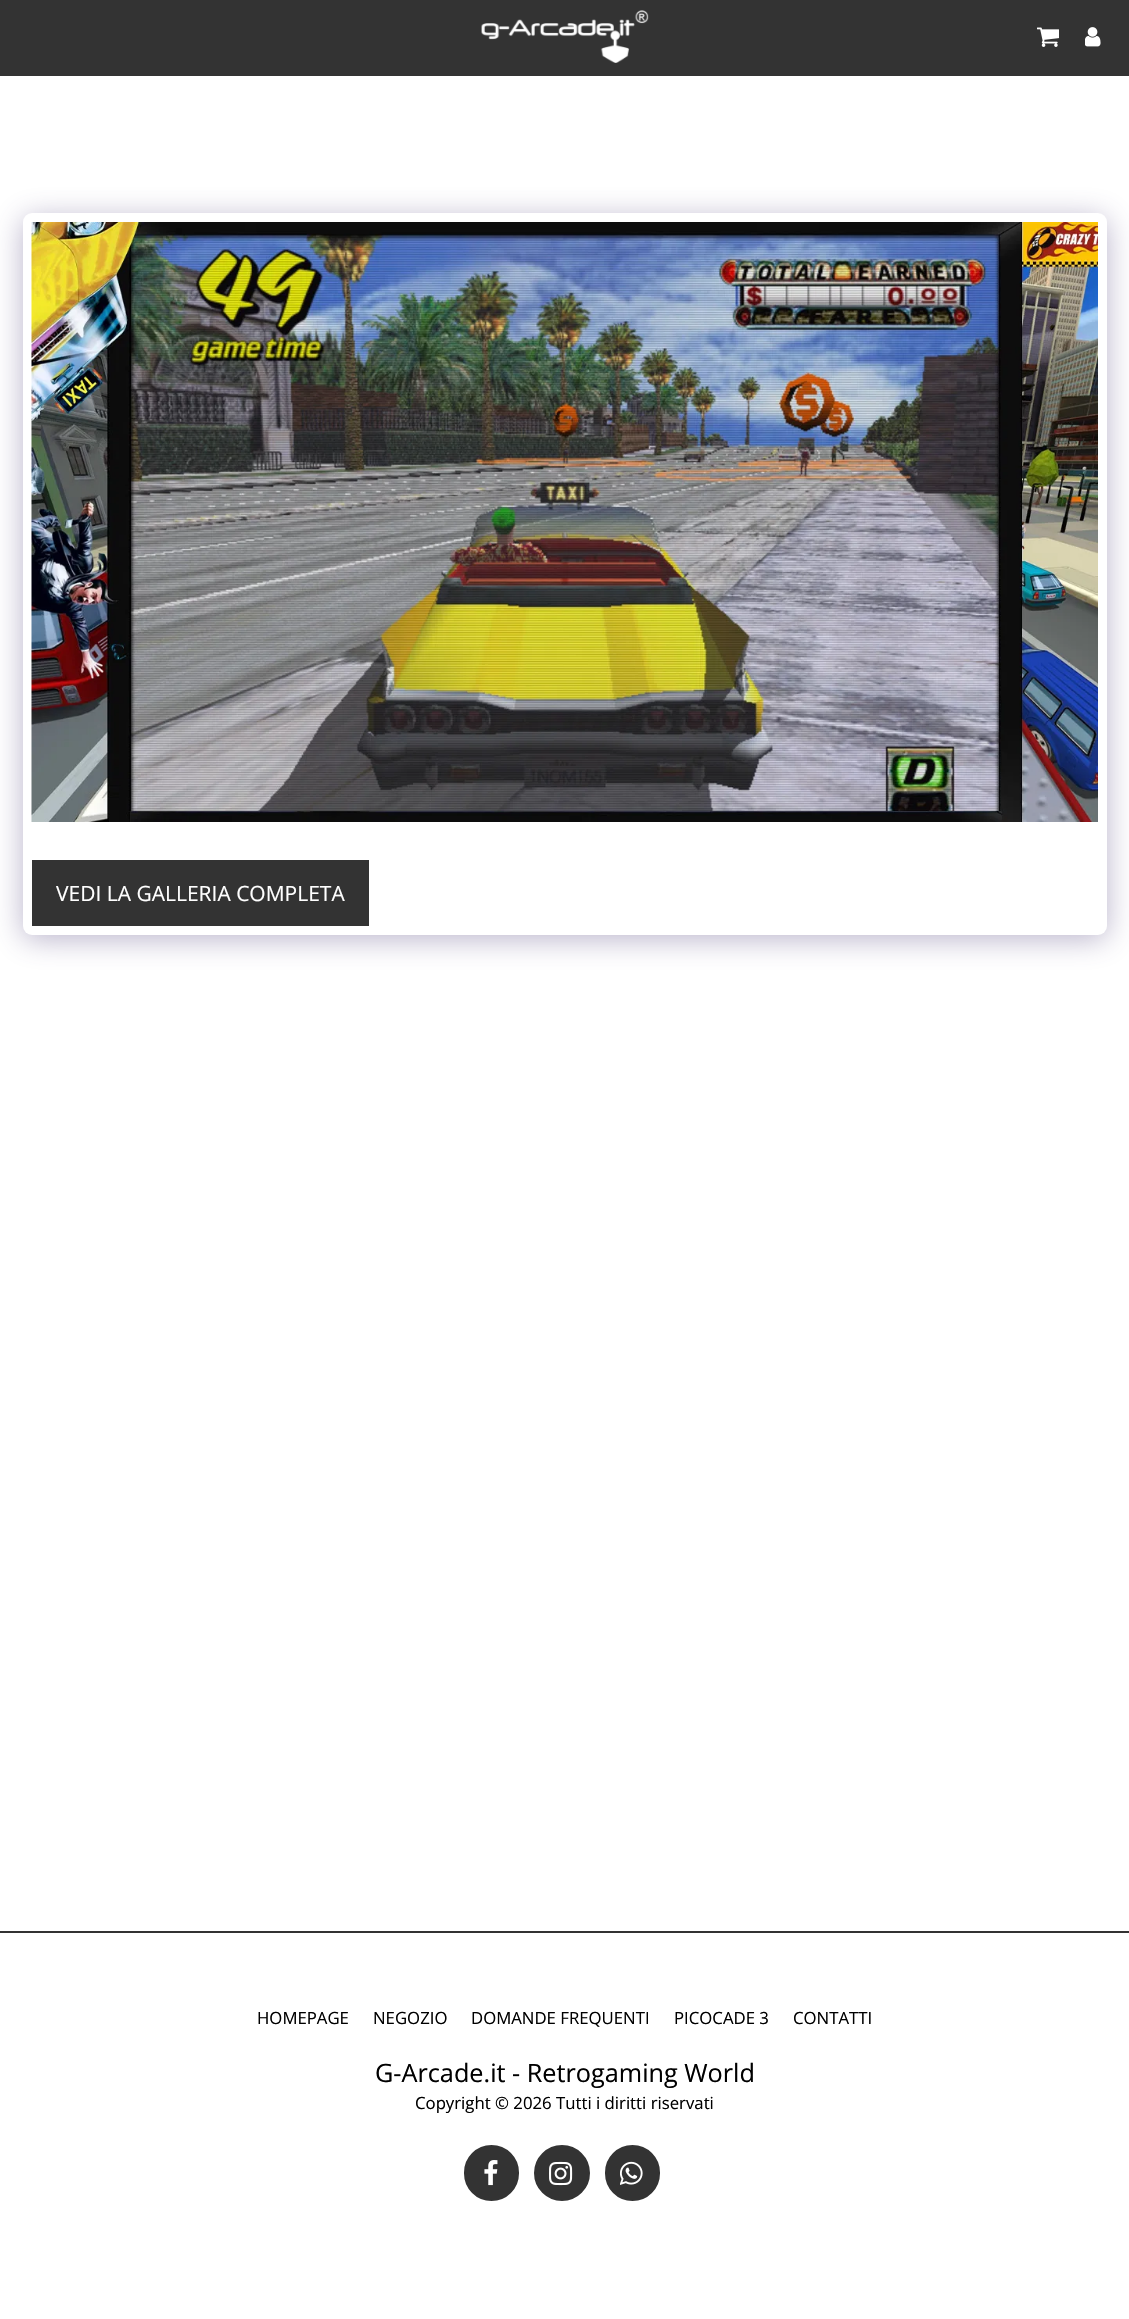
#include "include/core/SkBlurTypes.h"
#include "include/core/SkCanvas.h"
#include "include/core/SkData.h"
#include "include/core/SkFont.h"
#include "include/core/SkFontMgr.h"
#include "include/core/SkImage.h"
#include "include/core/SkMaskFilter.h"
#include "include/core/SkPaint.h"
#include "include/core/SkPathBuilder.h"
#include "include/core/SkTextBlob.h"
#include "include/effects/SkDashPathEffect.h"
#include "include/effects/SkGradientShader.h"
#include "include/utils/SkParsePath.h"

extern sk_sp<SkFontMgr> fontMgr;

void draw(SkCanvas* canvas) {
    SkPaint p;
    p.setAntiAlias(true);
    auto font = [&](const char* family, int weight, float size, bool italic = false) {
        SkFontStyle style(weight, SkFontStyle::kNormal_Width,
            italic ? SkFontStyle::kItalic_Slant : SkFontStyle::kUpright_Slant);
        SkFont result(fontMgr->matchFamilyStyle(family, style), size);
        result.setSubpixel(true);
        return result;
    };
    auto drawPhoto = [&](const char* path, float l, float t, float r, float b) {
        auto image = SkImages::DeferredFromEncodedData(SkData::MakeFromFileName(path));
        canvas->drawImageRect(image, SkRect::MakeLTRB(l, t, r, b), SkSamplingOptions());
    };
    canvas->clear(0xFFFFFFFF);
    p.setColor(0xFF333333);
    canvas->drawRect(SkRect::MakeLTRB(0, 0, 1129, 76), p);
    drawPhoto("media/1.png", 481, 10, 649, 63);
    drawPhoto("media/2.png", 1037, 27, 1059, 47);
    drawPhoto("media/3.png", 1085, 27, 1101, 47);
    p.setColor(0x664D3F7A);
    p.setMaskFilter(SkMaskFilter::MakeBlur(kNormal_SkBlurStyle, 15));
    canvas->drawRoundRect(SkRect::MakeLTRB(23, 218, 1107, 939), 9, 9, p);
    p.setMaskFilter(nullptr);
    p.setColor(0xFFFFFFFF);
    canvas->drawRoundRect(SkRect::MakeLTRB(23, 213, 1107, 935), 9, 9, p);
    drawPhoto("media/4.png", 31, 222, 1098, 822);
    p.setColor(0xFF333333);
    canvas->drawRect(SkRect::MakeLTRB(32, 860, 369, 926), p);
    auto font1 = font("Open Sans", 400, 21);
    p.setColor(0xFFFFFFFF);
    canvas->drawString("VEDI LA GALLERIA COMPLETA", 56, 901, font1, p);
    p.setColor(0xFF333333);
    canvas->drawRect(SkRect::MakeLTRB(0, 1931, 1129, 1933), p);
    auto font2 = font("Open Sans", 400, 16.75f);
    p.setColor(0xFF000000);
    {
        const struct { const char* s; float x, y; } items[] = {
            {"HOMEPAGE", 257, 2024},
            {"NEGOZIO", 373, 2024},
            {"DOMANDE FREQUENTI", 471, 2024},
            {"PICOCADE 3", 674, 2024},
            {"CONTATTI", 793, 2024},
        };
        for (auto [s, x, y] : items) {
            canvas->drawString(s, x, y, font2, p);
        }
    }
    auto font3 = font("Open Sans", 400, 25.25f);
    canvas->drawString("G-Arcade.it - Retrogaming World", 375, 2082, font3, p);
    canvas->drawString("Copyright © 2026 Tutti i diritti riservati", 415, 2109, font2, p);
    p.setColor(0xFF333333);
    canvas->drawRoundRect(SkRect::MakeLTRB(465, 2146, 518, 2200), 26.5f, 26.5f, p);
    p.setStyle(SkPaint::kStroke_Style);
    p.setStrokeWidth(2);
    canvas->drawRoundRect(SkRect::MakeLTRB(465, 2146, 518, 2200), 26.5f, 26.5f, p);
    drawPhoto("media/5.png", 484, 2160, 498, 2186);
    p.setStyle(SkPaint::kFill_Style);
    canvas->drawCircle(562, 2173, 27, p);
    p.setStyle(SkPaint::kStroke_Style);
    canvas->drawCircle(562, 2173, 27, p);
    drawPhoto("media/6.png", 549, 2161, 573, 2186);
    p.setStyle(SkPaint::kFill_Style);
    canvas->drawRoundRect(SkRect::MakeLTRB(606, 2146, 659, 2200), 26.5f, 26.5f, p);
    p.setStyle(SkPaint::kStroke_Style);
    canvas->drawRoundRect(SkRect::MakeLTRB(606, 2146, 659, 2200), 26.5f, 26.5f, p);
    drawPhoto("media/7.png", 620, 2161, 643, 2185);
}
